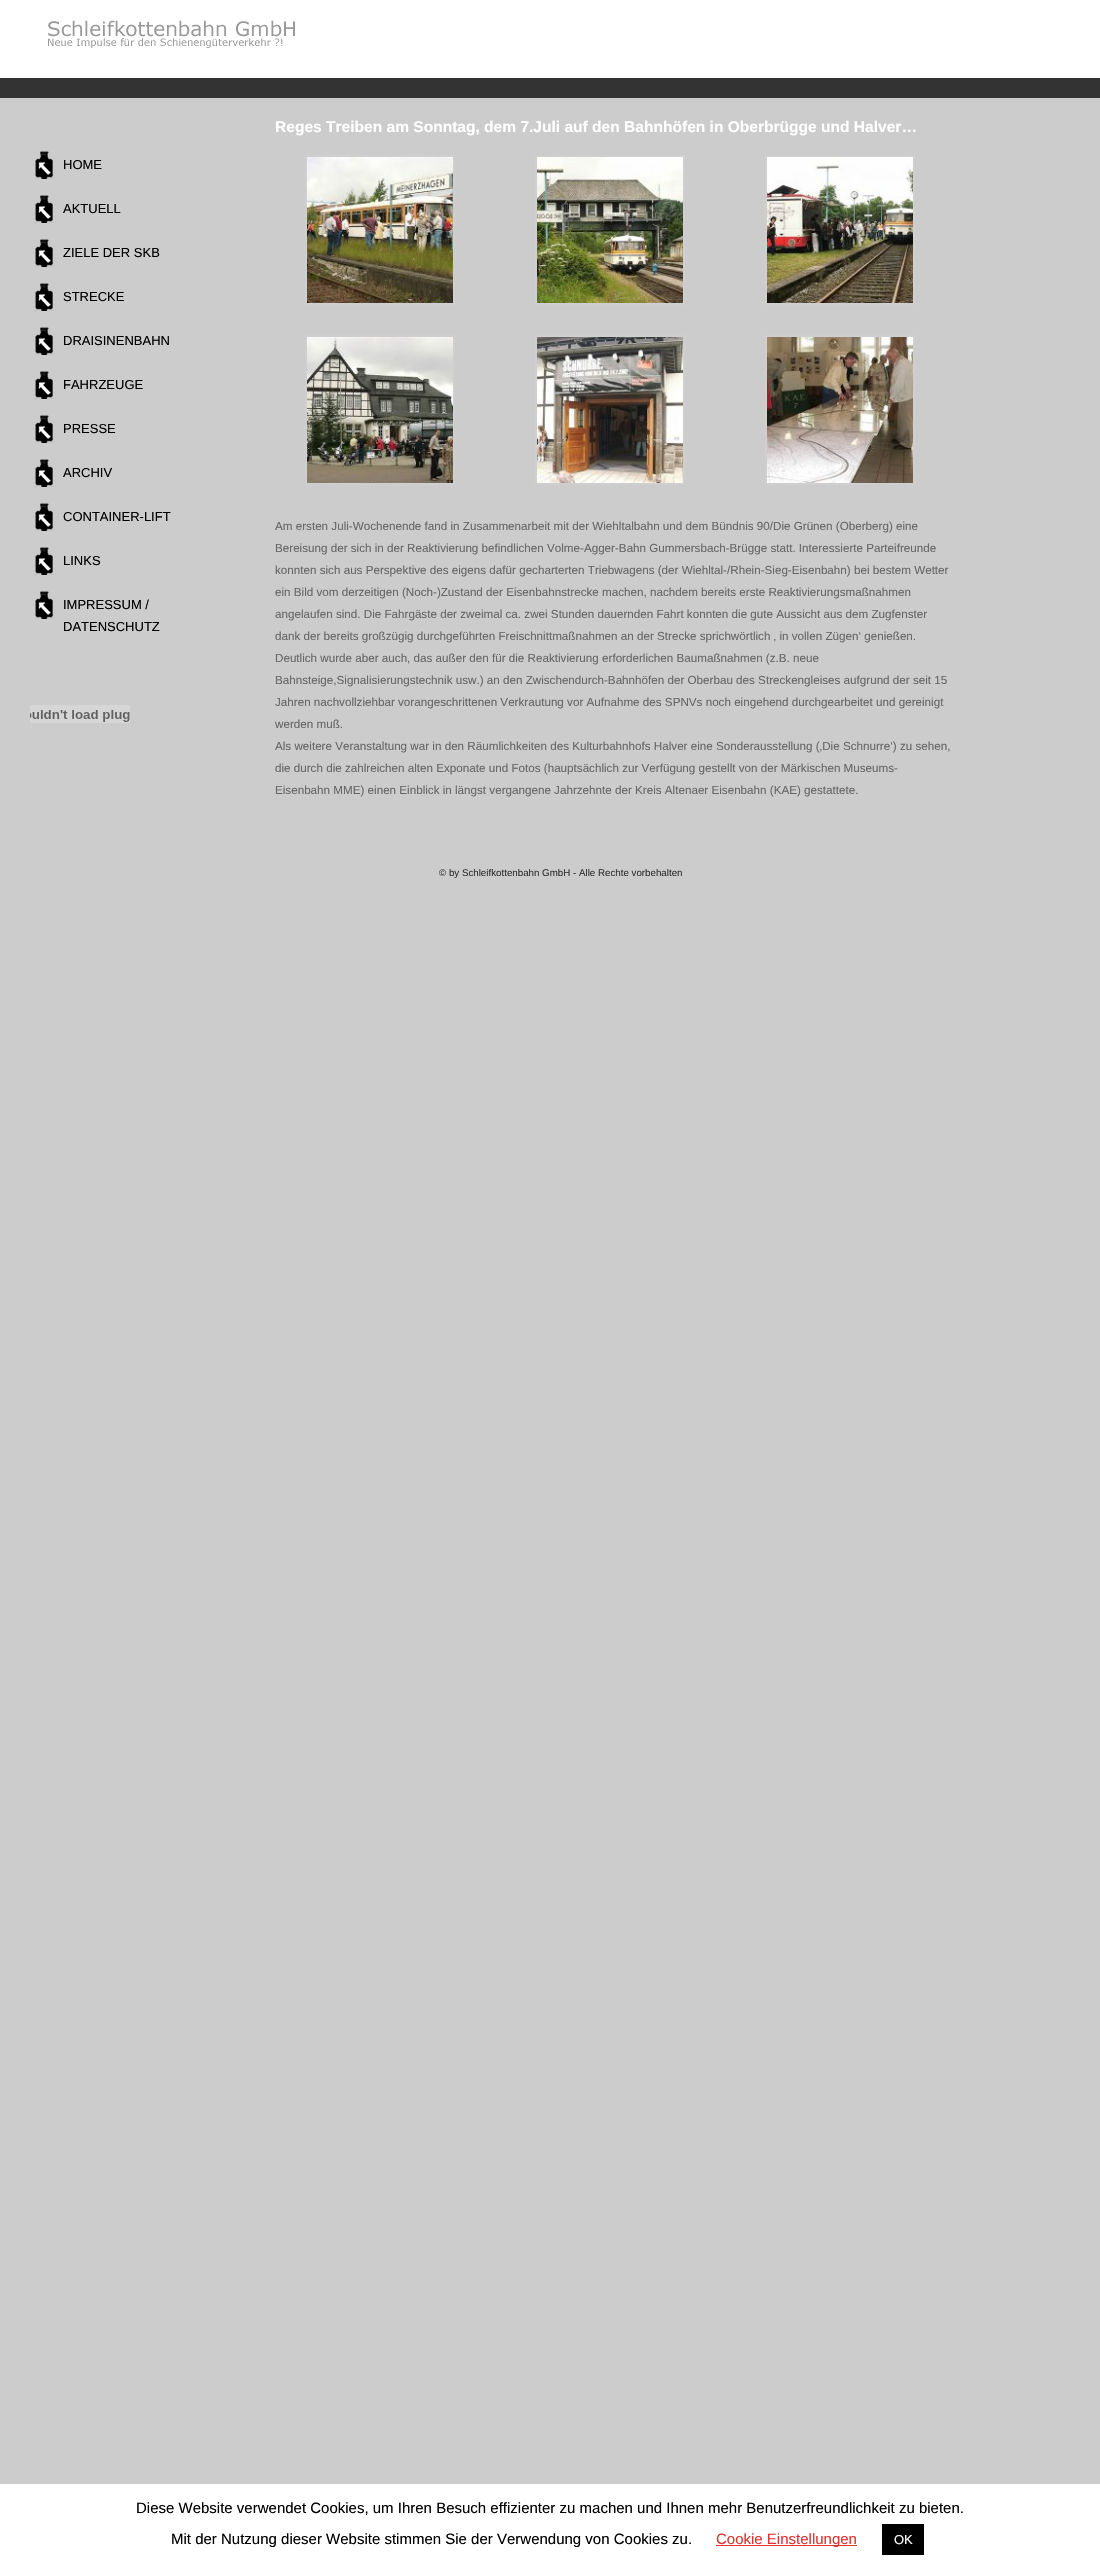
#include "include/core/SkBlurTypes.h"
#include "include/core/SkCanvas.h"
#include "include/core/SkData.h"
#include "include/core/SkFont.h"
#include "include/core/SkFontMgr.h"
#include "include/core/SkImage.h"
#include "include/core/SkMaskFilter.h"
#include "include/core/SkPaint.h"
#include "include/core/SkPathBuilder.h"
#include "include/core/SkTextBlob.h"
#include "include/effects/SkDashPathEffect.h"
#include "include/effects/SkGradientShader.h"
#include "include/utils/SkParsePath.h"

extern sk_sp<SkFontMgr> fontMgr;

void draw(SkCanvas* canvas) {
    SkPaint p;
    p.setAntiAlias(true);
    auto font = [&](const char* family, int weight, float size, bool italic = false) {
        SkFontStyle style(weight, SkFontStyle::kNormal_Width,
            italic ? SkFontStyle::kItalic_Slant : SkFontStyle::kUpright_Slant);
        SkFont result(fontMgr->matchFamilyStyle(family, style), size);
        result.setSubpixel(true);
        return result;
    };
    auto drawPhoto = [&](const char* path, float l, float t, float r, float b) {
        auto image = SkImages::DeferredFromEncodedData(SkData::MakeFromFileName(path));
        canvas->drawImageRect(image, SkRect::MakeLTRB(l, t, r, b), SkSamplingOptions());
    };
    canvas->clear(0xFFCCCCCC);
    p.setColor(0xFFFFFFFF);
    canvas->drawRect(SkRect::MakeLTRB(0, 0, 1100, 78), p);
    p.setColor(0xFF333333);
    canvas->drawRect(SkRect::MakeLTRB(0, 78, 1100, 98), p);
    drawPhoto("media/1.png", 48, 20, 295, 48);
    drawPhoto("media/2.png", 34, 151, 54, 179);
    auto font1 = font("Liberation Sans", 400, 13);
    p.setColor(0xFF000000);
    canvas->drawString("HOME", 63, 169, font1, p);
    drawPhoto("media/2.png", 34, 195, 54, 223);
    canvas->drawString("AKTUELL", 63, 213, font1, p);
    drawPhoto("media/2.png", 34, 239, 54, 267);
    canvas->drawString("ZIELE DER SKB", 63, 257, font1, p);
    drawPhoto("media/2.png", 34, 283, 54, 311);
    canvas->drawString("STRECKE", 63, 301, font1, p);
    drawPhoto("media/2.png", 34, 327, 54, 355);
    canvas->drawString("DRAISINENBAHN", 63, 345, font1, p);
    drawPhoto("media/2.png", 34, 371, 54, 399);
    canvas->drawString("FAHRZEUGE", 63, 389, font1, p);
    drawPhoto("media/2.png", 34, 415, 54, 443);
    canvas->drawString("PRESSE", 63, 433, font1, p);
    drawPhoto("media/2.png", 34, 459, 54, 487);
    canvas->drawString("ARCHIV", 63, 477, font1, p);
    drawPhoto("media/2.png", 34, 503, 54, 531);
    canvas->drawString("CONTAINER-LIFT", 63, 521, font1, p);
    drawPhoto("media/2.png", 34, 547, 54, 575);
    canvas->drawString("LINKS", 63, 565, font1, p);
    drawPhoto("media/2.png", 34, 591, 54, 619);
    canvas->drawString("IMPRESSUM /", 63, 609, font1, p);
    canvas->drawString("DATENSCHUTZ", 63, 631, font1, p);
    drawPhoto("media/3.png", 30, 705, 130, 723);
    auto font2 = font("Liberation Sans", 700, 15.55f);
    p.setColor(0xFFFFFFFF);
    canvas->drawString("Reges Treiben am Sonntag, dem 7.Juli auf den Bahnhöfen in Oberbrügge und Halver…", 275, 132, font2, p);
    p.setStyle(SkPaint::kStroke_Style);
    p.setStrokeWidth(2);
    p.setColor(0xFFCFCFCF);
    canvas->drawRect(SkRect::MakeLTRB(306, 156, 454, 304), p);
    drawPhoto("media/4.png", 307, 157, 453, 303);
    canvas->drawRect(SkRect::MakeLTRB(536, 156, 684, 304), p);
    drawPhoto("media/5.png", 537, 157, 683, 303);
    canvas->drawRect(SkRect::MakeLTRB(766, 156, 914, 304), p);
    drawPhoto("media/6.png", 767, 157, 913, 303);
    canvas->drawRect(SkRect::MakeLTRB(306, 336, 454, 484), p);
    drawPhoto("media/7.png", 307, 337, 453, 483);
    canvas->drawRect(SkRect::MakeLTRB(536, 336, 684, 484), p);
    drawPhoto("media/8.png", 537, 337, 683, 483);
    canvas->drawRect(SkRect::MakeLTRB(766, 336, 914, 484), p);
    drawPhoto("media/9.png", 767, 337, 913, 483);
    auto font3 = font("Liberation Sans", 400, 11.65f);
    p.setStyle(SkPaint::kFill_Style);
    p.setColor(0xFF666666);
    {
        const struct { const char* s; float x, y; } items[] = {
            {"Am ersten Juli-Wochenende fand in Zusammenarbeit mit der Wiehltalbahn und dem Bündnis 90/Die Grünen (Oberberg) eine", 275, 530},
            {"Bereisung der sich in der Reaktivierung befindlichen Volme-Agger-Bahn Gummersbach-Brügge statt. Interessierte Parteifreunde", 275, 552},
            {"konnten sich aus Perspektive des eigens dafür gecharterten Triebwagens (der Wiehltal-/Rhein-Sieg-Eisenbahn) bei bestem Wetter", 275, 574},
            {"ein Bild vom derzeitigen (Noch-)Zustand der Eisenbahnstrecke machen, nachdem bereits erste Reaktivierungsmaßnahmen", 275, 596},
            {"angelaufen sind. Die Fahrgäste der zweimal ca. zwei Stunden dauernden Fahrt konnten die gute Aussicht aus dem Zugfenster", 275, 618},
            {"dank der bereits großzügig durchgeführten Freischnittmaßnahmen an der Strecke sprichwörtlich ‚ in vollen Zügen‘ genießen.", 275, 640},
            {"Deutlich wurde aber auch, das außer den für die Reaktivierung erforderlichen Baumaßnahmen (z.B. neue", 275, 662},
            {"Bahnsteige,Signalisierungstechnik usw.) an den Zwischendurch-Bahnhöfen der Oberbau des Streckengleises aufgrund der seit 15", 275, 684},
            {"Jahren nachvollziehbar vorangeschrittenen Verkrautung vor Aufnahme des SPNVs noch eingehend durchgearbeitet und gereinigt", 275, 706},
            {"werden muß.", 275, 728},
            {"Als weitere Veranstaltung war in den Räumlichkeiten des Kulturbahnhofs Halver eine Sonderausstellung (‚Die Schnurre‘) zu sehen,", 275, 750},
            {"die durch die zahlreichen alten Exponate und Fotos (hauptsächlich zur Verfügung gestellt von der Märkischen Museums-", 275, 772},
            {"Eisenbahn MME) einen Einblick in längst vergangene Jahrzehnte der Kreis Altenaer Eisenbahn (KAE) gestattete.", 275, 794},
        };
        for (auto [s, x, y] : items) {
            canvas->drawString(s, x, y, font3, p);
        }
    }
    auto font4 = font("Liberation Sans", 400, 9.75f);
    p.setColor(0xFF333333);
    canvas->drawString("© by Schleifkottenbahn GmbH - Alle Rechte vorbehalten", 439, 876, font4, p);
    p.setColor(0xFFFFFFFF);
    canvas->drawRect(SkRect::MakeLTRB(0, 2484, 1100, 2572), p);
    auto font5 = font("Liberation Sans", 400, 15);
    p.setColor(0xFF000000);
    canvas->drawString("Diese Website verwendet Cookies, um Ihren Besuch effizienter zu machen und Ihnen mehr Benutzerfreundlichkeit zu bieten.", 136, 2513, font5, p);
    canvas->drawString("Mit der Nutzung dieser Website stimmen Sie der Verwendung von Cookies zu.", 171, 2544, font5, p);
    p.setColor(0xFFDD3333);
    canvas->drawRect(SkRect::MakeLTRB(716, 2545, 857, 2546), p);
    canvas->drawString("Cookie Einstellungen", 716, 2544, font5, p);
    p.setColor(0xFF000000);
    canvas->drawRect(SkRect::MakeLTRB(882, 2524, 924, 2555), p);
    p.setColor(0xFFFFFFFF);
    canvas->drawString("OK", 894, 2544, font1, p);
}
